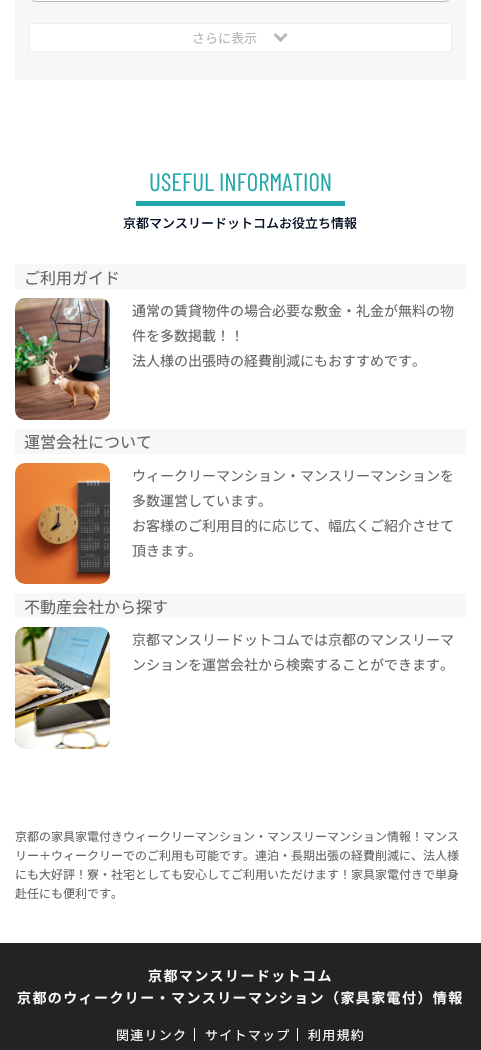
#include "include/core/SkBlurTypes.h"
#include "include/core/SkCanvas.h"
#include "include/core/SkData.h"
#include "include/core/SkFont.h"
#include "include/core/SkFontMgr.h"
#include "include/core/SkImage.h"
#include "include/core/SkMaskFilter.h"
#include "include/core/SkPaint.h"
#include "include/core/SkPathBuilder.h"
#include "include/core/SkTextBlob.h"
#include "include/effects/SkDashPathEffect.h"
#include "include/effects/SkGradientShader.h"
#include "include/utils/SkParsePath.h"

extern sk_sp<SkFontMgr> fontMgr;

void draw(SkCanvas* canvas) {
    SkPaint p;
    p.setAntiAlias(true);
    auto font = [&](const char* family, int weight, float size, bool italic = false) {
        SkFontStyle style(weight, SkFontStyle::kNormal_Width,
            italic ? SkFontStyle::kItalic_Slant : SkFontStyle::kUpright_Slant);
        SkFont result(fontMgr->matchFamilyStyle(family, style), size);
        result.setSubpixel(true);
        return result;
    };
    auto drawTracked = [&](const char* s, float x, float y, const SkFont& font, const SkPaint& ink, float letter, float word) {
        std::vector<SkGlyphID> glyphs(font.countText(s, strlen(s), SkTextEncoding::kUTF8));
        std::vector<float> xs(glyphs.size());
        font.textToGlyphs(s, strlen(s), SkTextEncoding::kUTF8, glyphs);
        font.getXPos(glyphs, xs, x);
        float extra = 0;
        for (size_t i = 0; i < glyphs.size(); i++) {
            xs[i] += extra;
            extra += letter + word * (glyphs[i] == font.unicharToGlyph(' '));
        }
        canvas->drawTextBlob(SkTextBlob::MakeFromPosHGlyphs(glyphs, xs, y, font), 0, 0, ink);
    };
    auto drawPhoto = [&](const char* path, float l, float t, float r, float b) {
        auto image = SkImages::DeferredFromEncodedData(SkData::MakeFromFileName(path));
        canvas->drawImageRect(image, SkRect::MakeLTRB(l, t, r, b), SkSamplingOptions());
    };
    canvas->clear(0xFFFFFFFF);
    p.setColor(0xFFF7F7F7);
    canvas->drawRect(SkRect::MakeLTRB(15, 0, 466, 80), p);
    p.setColor(0xFFFFFFFF);
    canvas->drawRoundRect(SkRect::MakeLTRB(29.5f, -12.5f, 451.5f, 1.5f), 11.5f, 11.5f, p);
    p.setStyle(SkPaint::kStroke_Style);
    p.setStrokeWidth(1);
    p.setColor(0xFFB5B5B5);
    canvas->drawRoundRect(SkRect::MakeLTRB(29.5f, -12.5f, 451.5f, 1.5f), 11.5f, 11.5f, p);
    p.setStyle(SkPaint::kFill_Style);
    p.setColor(0xFFFFFFFF);
    canvas->drawRect(SkRect::MakeLTRB(29.5f, 23.5f, 451.5f, 51.5f), p);
    p.setStyle(SkPaint::kStroke_Style);
    p.setColor(0xFFEEEEEE);
    canvas->drawRect(SkRect::MakeLTRB(29.5f, 23.5f, 451.5f, 51.5f), p);
    auto font1 = font("Noto Sans JP", 400, 13);
    p.setStyle(SkPaint::kFill_Style);
    p.setColor(0xFFB5B5B5);
    canvas->drawString("さらに表示", 192, 43, font1, p);
    canvas->drawPath(SkPathBuilder().moveTo(278.5f, 40).lineTo(285.5f, 33).lineTo(287.5f, 35).lineTo(280.5f, 42).close().detach(), p);
    canvas->drawPath(SkPathBuilder().moveTo(273.5f, 35).lineTo(275.5f, 33).lineTo(283, 40).lineTo(280.5f, 42).close().detach(), p);
    p.setColor(0xFF24A7AB);
    canvas->drawRect(SkRect::MakeLTRB(136, 201, 345, 206), p);
    auto font2 = font("Barlow Condensed", 400, 25);
    canvas->drawString("USEFUL INFORMATION", 149, 191, font2, p);
    auto font3 = font("Noto Sans JP", 500, 13);
    p.setColor(0xFF041025);
    canvas->drawString("京都マンスリードットコムお役立ち情報", 123, 228, font3, p);
    p.setColor(0xFFF7F7F7);
    canvas->drawRect(SkRect::MakeLTRB(15, 264, 466, 289), p);
    auto font4 = font("Noto Sans JP", 400, 16);
    p.setColor(0xFF656565);
    canvas->drawString("ご利用ガイド", 24, 284, font4, p);
    drawPhoto("media/1.png", 15, 298, 110, 420);
    auto font5 = font("Noto Sans JP", 400, 14);
    {
        const struct { const char* s; float x, y; } items[] = {
            {"通常の賃貸物件の場合必要な敷金・礼金が無料の物", 132, 316},
            {"件を多数掲載！！", 132, 341},
            {"法人様の出張時の経費削減にもおすすめです。", 132, 366},
        };
        for (auto [s, x, y] : items) {
            canvas->drawString(s, x, y, font5, p);
        }
    }
    p.setColor(0xFFF7F7F7);
    canvas->drawRect(SkRect::MakeLTRB(15, 429, 466, 454), p);
    p.setColor(0xFF656565);
    canvas->drawString("運営会社について", 24, 448, font4, p);
    drawPhoto("media/2.png", 15, 463, 110, 584);
    {
        const struct { const char* s; float x, y; } items[] = {
            {"ウィークリーマンション・マンスリーマンションを", 132, 481},
            {"多数運営しています。", 132, 506},
            {"お客様のご利用目的に応じて、幅広くご紹介させて", 132, 531},
            {"頂きます。", 132, 556},
        };
        for (auto [s, x, y] : items) {
            canvas->drawString(s, x, y, font5, p);
        }
    }
    p.setColor(0xFFF7F7F7);
    canvas->drawRect(SkRect::MakeLTRB(15, 593, 466, 618), p);
    p.setColor(0xFF656565);
    canvas->drawString("不動産会社から探す", 24, 613, font4, p);
    drawPhoto("media/3.png", 15, 627, 110, 749);
    canvas->drawString("京都マンスリードットコムでは京都のマンスリーマ", 132, 645, font5, p);
    canvas->drawString("ンションを運営会社から検索することができます。", 132, 670, font5, p);
    auto font6 = font("Noto Sans JP", 400, 12);
    {
        const struct { const char* s; float x, y; } items[] = {
            {"京都の家具家電付きウィークリーマンション・マンスリーマンション情報！マンス", 15, 841},
            {"リー＋ウィークリーでのご利用も可能です。連泊・長期出張の経費削減に、法人様", 15, 860},
            {"にも大好評！寮・社宅としても安心してご利用いただけます！家具家電付きで単身", 15, 879},
            {"赴任にも便利です。", 15, 898},
        };
        for (auto [s, x, y] : items) {
            canvas->drawString(s, x, y, font6, p);
        }
    }
    p.setColor(0xFF232323);
    canvas->drawRect(SkRect::MakeLTRB(0, 943, 481, 1050), p);
    auto font7 = font("Noto Sans JP", 600, 14);
    p.setColor(0xFFFFFFFF);
    drawTracked("京都マンスリードットコム", 148, 981, font7, p, 1.4f, 0);
    drawTracked("京都のウィークリー・マンスリーマンション（家具家電付）情報", 17, 1003, font7, p, 1.4f, 0);
    canvas->drawRect(SkRect::MakeLTRB(194, 1028, 195, 1041), p);
    drawTracked("関連リンク", 116, 1040, font1, p, 1.25f, 0);
    canvas->drawRect(SkRect::MakeLTRB(297, 1028, 298, 1041), p);
    drawTracked("サイトマップ", 205, 1040, font1, p, 1.25f, 0);
    drawTracked("利用規約", 308, 1040, font1, p, 1.25f, 0);
}
